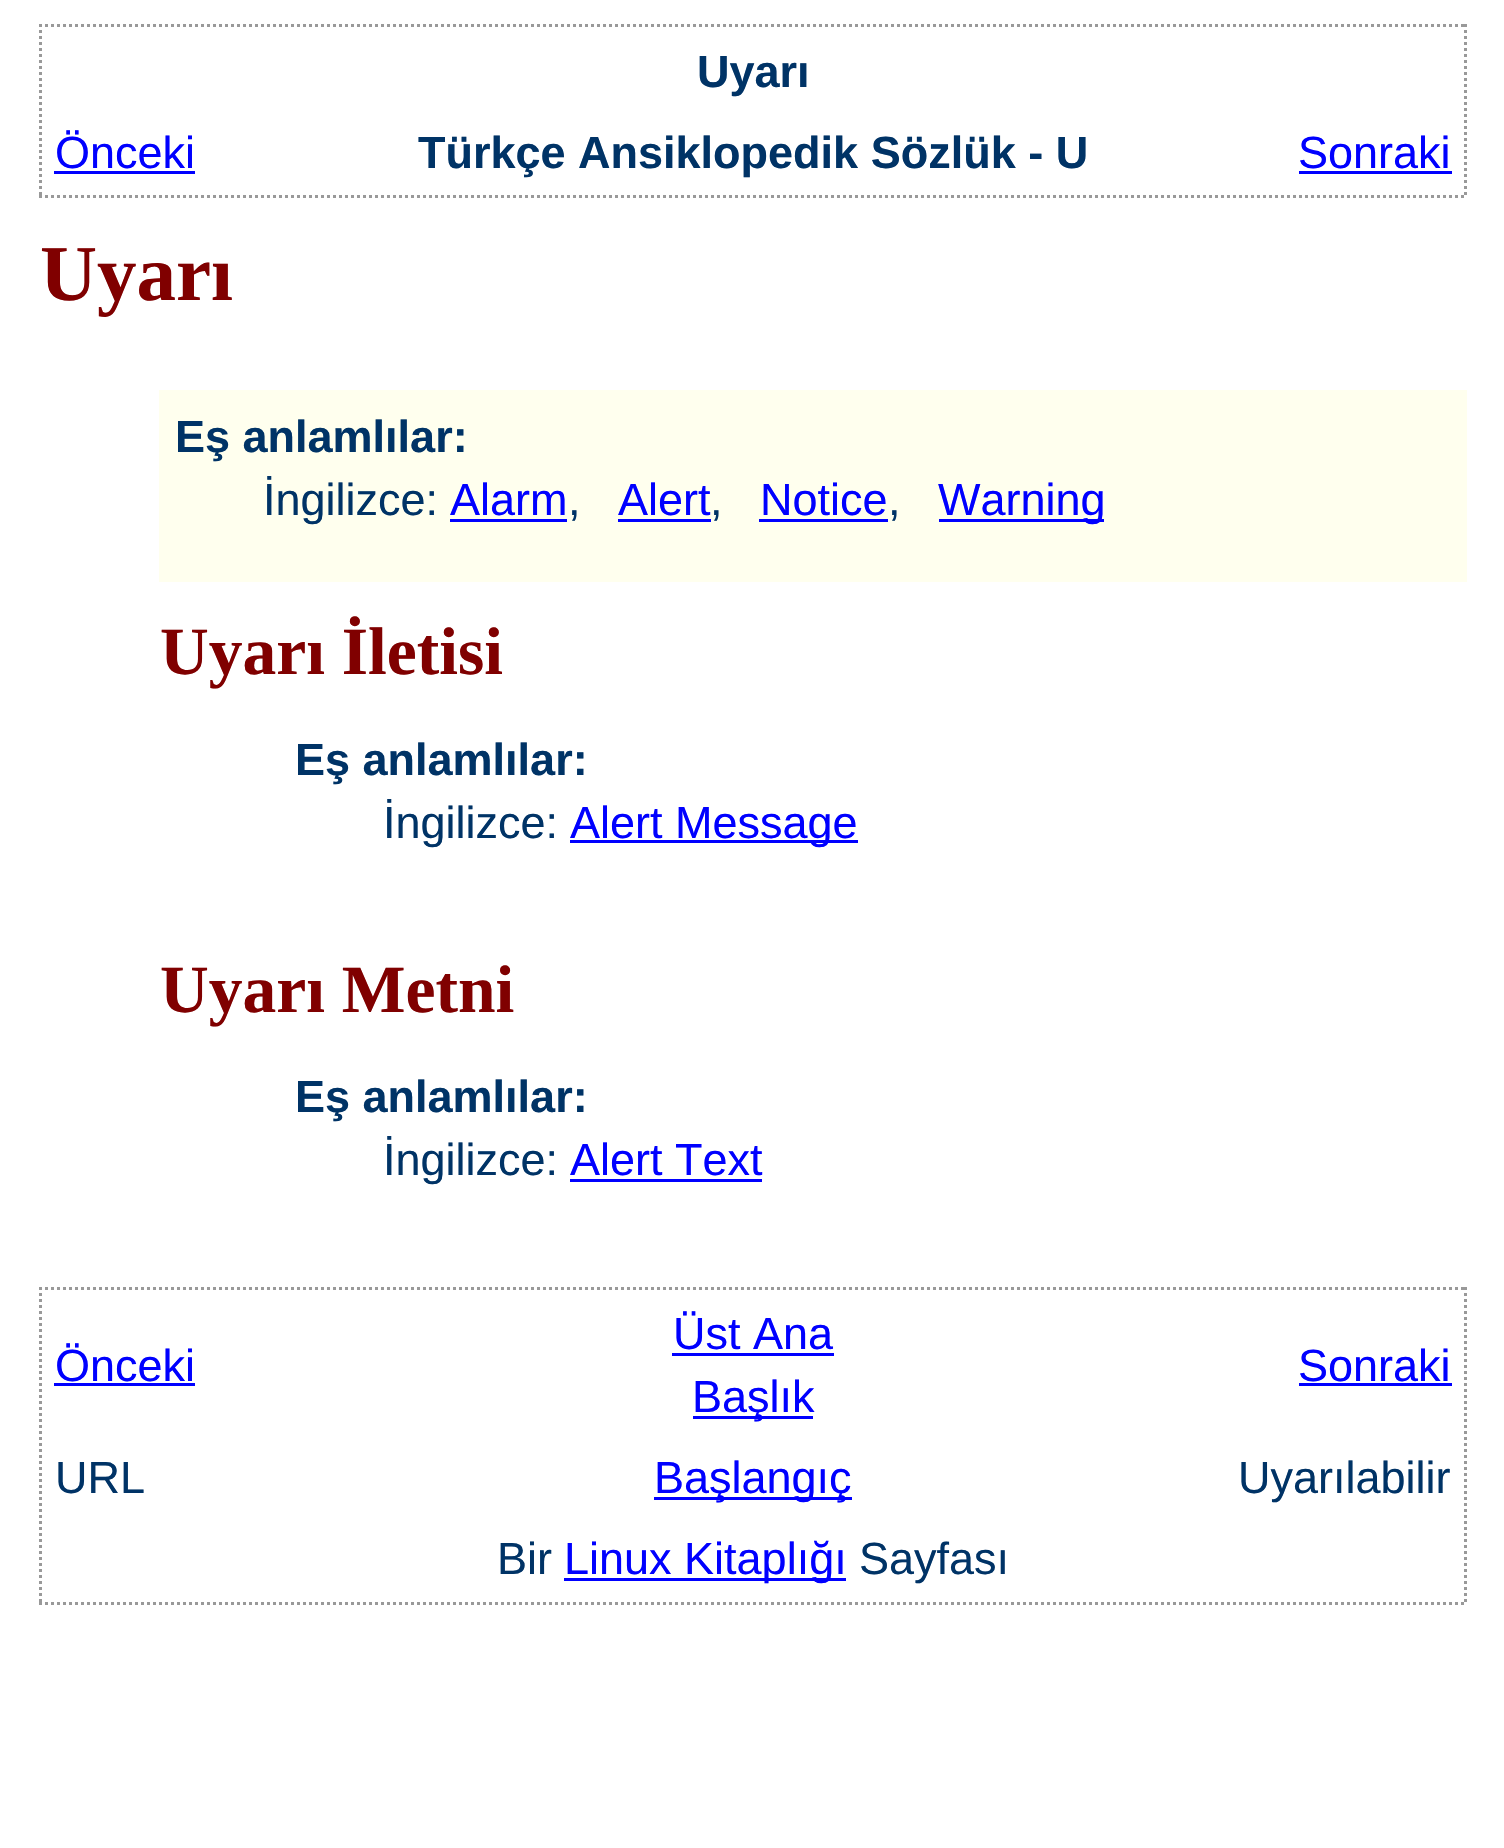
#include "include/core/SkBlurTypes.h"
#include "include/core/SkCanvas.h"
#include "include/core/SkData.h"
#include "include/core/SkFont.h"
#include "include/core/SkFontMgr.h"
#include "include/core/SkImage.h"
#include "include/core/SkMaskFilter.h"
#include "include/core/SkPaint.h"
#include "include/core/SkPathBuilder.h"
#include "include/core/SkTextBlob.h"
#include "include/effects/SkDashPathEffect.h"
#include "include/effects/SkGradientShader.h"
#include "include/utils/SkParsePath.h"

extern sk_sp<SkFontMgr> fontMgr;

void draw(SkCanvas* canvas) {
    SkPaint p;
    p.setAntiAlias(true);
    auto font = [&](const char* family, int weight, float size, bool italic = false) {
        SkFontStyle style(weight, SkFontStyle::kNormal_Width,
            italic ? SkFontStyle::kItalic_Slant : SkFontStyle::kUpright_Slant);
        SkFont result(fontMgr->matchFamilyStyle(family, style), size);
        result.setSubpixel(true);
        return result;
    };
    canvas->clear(0xFFFFFFFF);
    p.setStyle(SkPaint::kStroke_Style);
    p.setStrokeWidth(3);
    p.setColor(0xFF999999);
    p.setPathEffect(SkDashPathEffect::Make({{3, 3}}, 0));
    canvas->drawPath(SkPathBuilder().moveTo(39, 25.5f).lineTo(1467, 25.5f).detach(), p);
    p.setPathEffect(nullptr);
    p.setPathEffect(SkDashPathEffect::Make({{3, 3}}, 0));
    canvas->drawPath(SkPathBuilder().moveTo(1465.5f, 24).lineTo(1465.5f, 198).detach(), p);
    p.setPathEffect(nullptr);
    p.setPathEffect(SkDashPathEffect::Make({{3, 3}}, 0));
    canvas->drawPath(SkPathBuilder().moveTo(39, 196.5f).lineTo(1467, 196.5f).detach(), p);
    p.setPathEffect(nullptr);
    p.setPathEffect(SkDashPathEffect::Make({{3, 3}}, 0));
    canvas->drawPath(SkPathBuilder().moveTo(40.5f, 24).lineTo(40.5f, 198).detach(), p);
    p.setPathEffect(nullptr);
    auto font1 = font("Liberation Sans", 700, 45);
    p.setStyle(SkPaint::kFill_Style);
    p.setColor(0xFF003366);
    canvas->drawString("Uyarı", 697, 87, font1, p);
    auto font2 = font("Liberation Sans", 400, 45);
    p.setColor(0xFF0000FF);
    canvas->drawString("Önceki", 55, 168, font2, p);
    canvas->drawRect(SkRect::MakeLTRB(54, 171, 195, 174), p);
    p.setColor(0xFF003366);
    canvas->drawString("Türkçe Ansiklopedik Sözlük - U", 418, 168, font1, p);
    p.setColor(0xFF0000FF);
    canvas->drawString("Sonraki", 1298, 168, font2, p);
    canvas->drawRect(SkRect::MakeLTRB(1299, 171, 1452, 174), p);
    auto font3 = font("Liberation Serif", 700, 79);
    p.setColor(0xFF800000);
    canvas->drawString("Uyarı", 40, 300, font3, p);
    p.setColor(0xFFFFFFEE);
    canvas->drawRect(SkRect::MakeLTRB(159, 390, 1467, 582), p);
    p.setColor(0xFF003366);
    canvas->drawString("Eş anlamlılar:", 175, 452, font1, p);
    canvas->drawString("İngilizce:", 263, 515, font2, p);
    p.setColor(0xFF0000FF);
    canvas->drawString("Alarm", 450, 515, font2, p);
    canvas->drawRect(SkRect::MakeLTRB(450, 519, 567, 522), p);
    p.setColor(0xFF003366);
    canvas->drawString(",", 568, 515, font2, p);
    p.setColor(0xFF0000FF);
    canvas->drawString("Alert", 618, 515, font2, p);
    canvas->drawRect(SkRect::MakeLTRB(618, 519, 711, 522), p);
    p.setColor(0xFF003366);
    canvas->drawString(",", 710, 515, font2, p);
    p.setColor(0xFF0000FF);
    canvas->drawString("Notice", 760, 515, font2, p);
    canvas->drawRect(SkRect::MakeLTRB(759, 519, 888, 522), p);
    p.setColor(0xFF003366);
    canvas->drawString(",", 888, 515, font2, p);
    p.setColor(0xFF0000FF);
    canvas->drawRect(SkRect::MakeLTRB(939, 519, 1104, 522), p);
    canvas->drawString("Warning", 938, 515, font2, p);
    auto font4 = font("Liberation Serif", 700, 67.5f);
    p.setColor(0xFF800000);
    canvas->drawString("Uyarı İletisi", 160, 674, font4, p);
    p.setColor(0xFF003366);
    canvas->drawString("Eş anlamlılar:", 295, 775, font1, p);
    canvas->drawString("İngilizce:", 383, 838, font2, p);
    p.setColor(0xFF0000FF);
    canvas->drawRect(SkRect::MakeLTRB(570, 840, 858, 843), p);
    canvas->drawString("Alert Message", 570, 838, font2, p);
    p.setColor(0xFF800000);
    canvas->drawString("Uyarı Metni", 160, 1012, font4, p);
    p.setColor(0xFF003366);
    canvas->drawString("Eş anlamlılar:", 295, 1112, font1, p);
    canvas->drawString("İngilizce:", 383, 1175, font2, p);
    p.setColor(0xFF0000FF);
    canvas->drawString("Alert Text", 570, 1175, font2, p);
    canvas->drawRect(SkRect::MakeLTRB(570, 1179, 762, 1182), p);
    p.setStyle(SkPaint::kStroke_Style);
    p.setColor(0xFF999999);
    p.setPathEffect(SkDashPathEffect::Make({{3, 3}}, 0));
    canvas->drawPath(SkPathBuilder().moveTo(39, 1288.5f).lineTo(1467, 1288.5f).detach(), p);
    p.setPathEffect(nullptr);
    p.setPathEffect(SkDashPathEffect::Make({{3, 3}}, 0));
    canvas->drawPath(SkPathBuilder().moveTo(1465.5f, 1287).lineTo(1465.5f, 1605).detach(), p);
    p.setPathEffect(nullptr);
    p.setPathEffect(SkDashPathEffect::Make({{3, 3}}, 0));
    canvas->drawPath(SkPathBuilder().moveTo(39, 1603.5f).lineTo(1467, 1603.5f).detach(), p);
    p.setPathEffect(nullptr);
    p.setPathEffect(SkDashPathEffect::Make({{3, 3}}, 0));
    canvas->drawPath(SkPathBuilder().moveTo(40.5f, 1287).lineTo(40.5f, 1605).detach(), p);
    p.setPathEffect(nullptr);
    p.setStyle(SkPaint::kFill_Style);
    p.setColor(0xFF0000FF);
    canvas->drawString("Önceki", 55, 1381, font2, p);
    canvas->drawRect(SkRect::MakeLTRB(54, 1383, 195, 1386), p);
    canvas->drawString("Üst Ana", 673, 1349, font2, p);
    canvas->drawRect(SkRect::MakeLTRB(672, 1353, 834, 1356), p);
    canvas->drawRect(SkRect::MakeLTRB(693, 1416, 813, 1419), p);
    canvas->drawString("Başlık", 692, 1412, font2, p);
    canvas->drawString("Sonraki", 1298, 1381, font2, p);
    canvas->drawRect(SkRect::MakeLTRB(1299, 1383, 1452, 1386), p);
    p.setColor(0xFF003366);
    canvas->drawString("URL", 55, 1493, font2, p);
    p.setColor(0xFF0000FF);
    canvas->drawRect(SkRect::MakeLTRB(654, 1497, 852, 1500), p);
    canvas->drawString("Başlangıç", 654, 1493, font2, p);
    p.setColor(0xFF003366);
    canvas->drawString("Uyarılabilir", 1238, 1493, font2, p);
    canvas->drawString("Bir", 497, 1574, font2, p);
    p.setColor(0xFF0000FF);
    canvas->drawRect(SkRect::MakeLTRB(564, 1578, 846, 1581), p);
    canvas->drawString("Linux Kitaplığı", 564, 1574, font2, p);
    p.setColor(0xFF003366);
    canvas->drawString("Sayfası", 859, 1574, font2, p);
}
